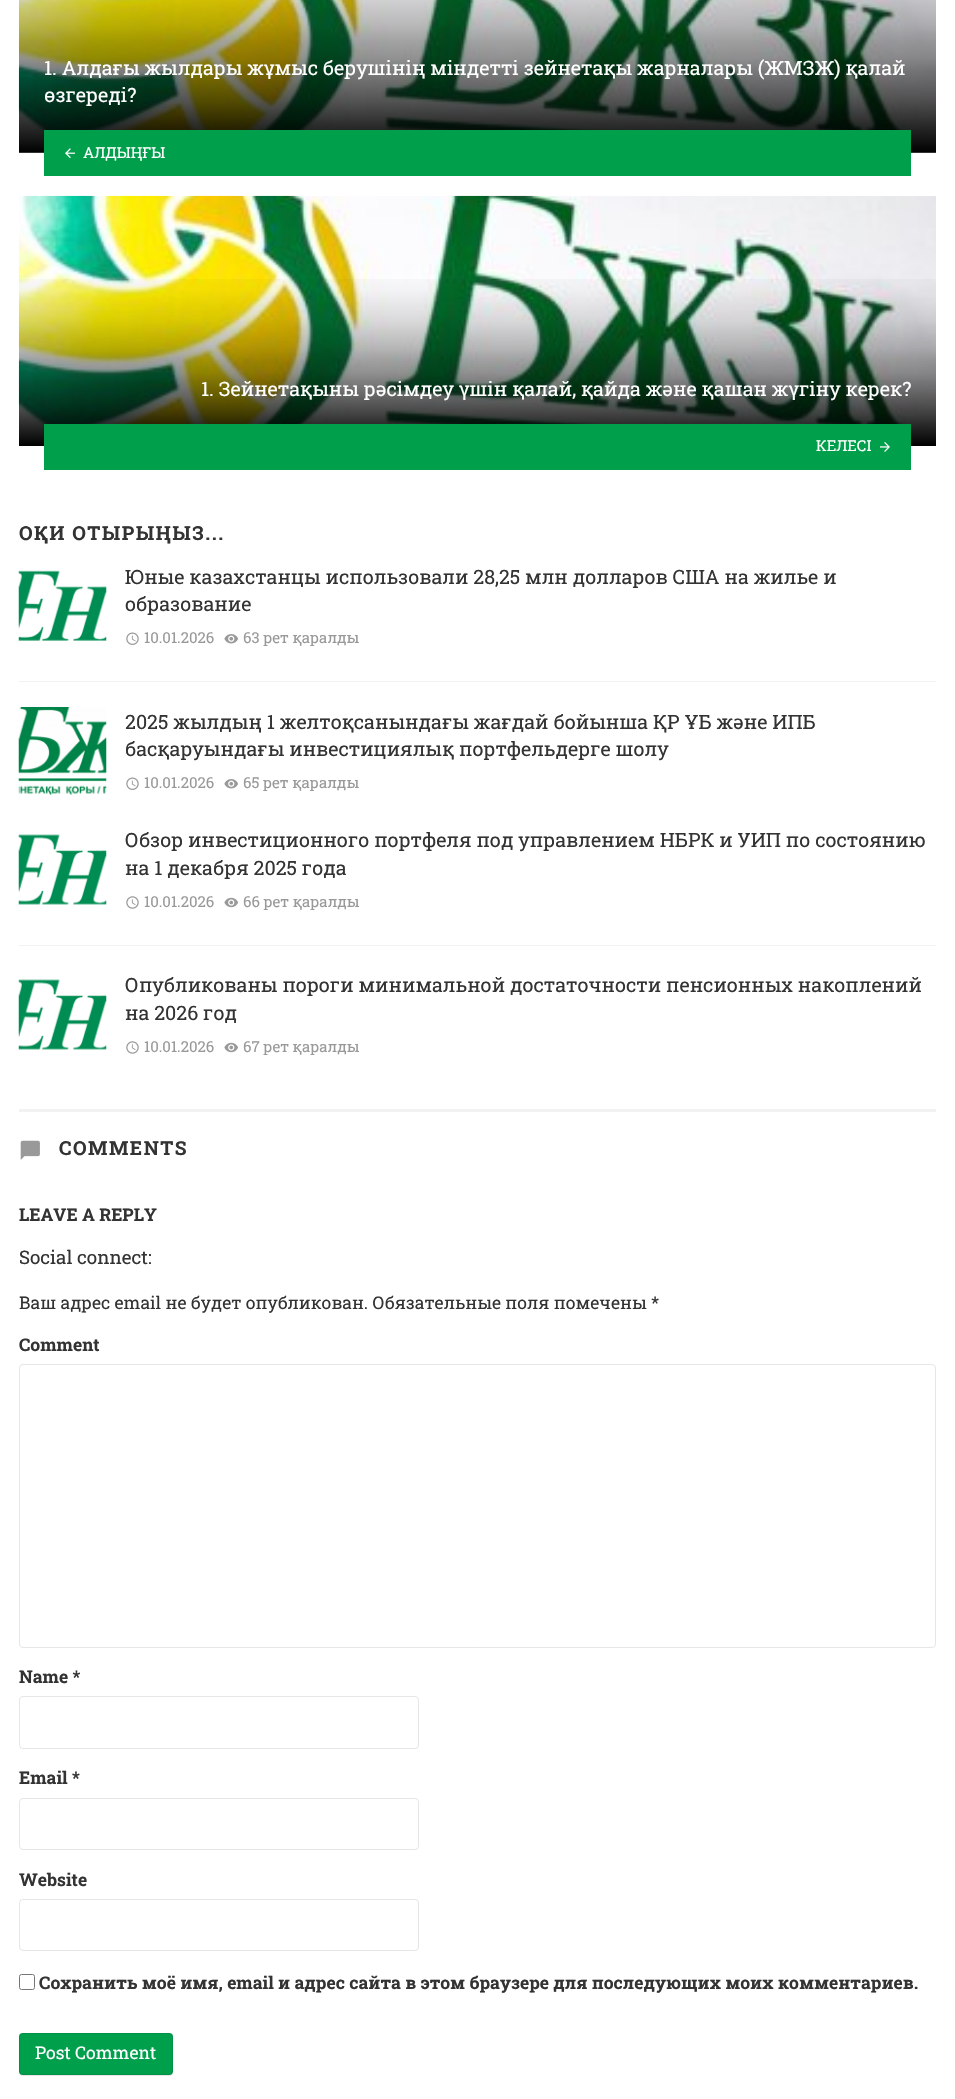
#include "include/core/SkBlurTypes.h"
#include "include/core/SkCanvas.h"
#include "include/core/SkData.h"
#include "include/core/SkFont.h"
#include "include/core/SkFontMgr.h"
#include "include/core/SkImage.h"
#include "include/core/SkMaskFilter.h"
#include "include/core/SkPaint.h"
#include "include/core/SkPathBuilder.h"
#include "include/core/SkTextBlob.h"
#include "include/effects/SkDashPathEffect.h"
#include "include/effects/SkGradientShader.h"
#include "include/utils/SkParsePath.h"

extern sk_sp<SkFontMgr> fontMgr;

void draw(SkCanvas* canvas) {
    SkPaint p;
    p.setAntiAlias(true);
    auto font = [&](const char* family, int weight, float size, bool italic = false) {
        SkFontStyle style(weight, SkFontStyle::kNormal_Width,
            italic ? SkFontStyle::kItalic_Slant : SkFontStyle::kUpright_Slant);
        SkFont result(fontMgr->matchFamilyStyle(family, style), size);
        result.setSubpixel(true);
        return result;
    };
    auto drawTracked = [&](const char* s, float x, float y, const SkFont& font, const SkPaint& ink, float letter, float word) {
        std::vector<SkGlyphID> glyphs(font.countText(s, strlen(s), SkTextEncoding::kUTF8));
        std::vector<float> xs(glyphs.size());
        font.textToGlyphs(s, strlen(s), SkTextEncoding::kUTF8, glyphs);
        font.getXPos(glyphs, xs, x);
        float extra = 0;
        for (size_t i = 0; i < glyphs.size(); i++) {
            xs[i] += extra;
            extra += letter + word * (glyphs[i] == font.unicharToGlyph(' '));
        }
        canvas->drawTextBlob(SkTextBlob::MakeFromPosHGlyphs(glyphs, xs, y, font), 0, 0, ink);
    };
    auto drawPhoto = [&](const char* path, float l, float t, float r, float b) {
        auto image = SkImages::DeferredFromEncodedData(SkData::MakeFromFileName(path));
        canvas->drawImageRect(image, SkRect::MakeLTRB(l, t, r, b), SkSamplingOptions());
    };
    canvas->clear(0xFFFFFFFF);
    p.setColor(0xFF333333);
    canvas->drawRect(SkRect::MakeLTRB(19, 152, 936, 153), p);
    drawPhoto("media/1.png", 18, 0, 936, 152);
    auto font1 = font("Roboto Slab", 400, 19.7f);
    p.setColor(0xFFFFFFFF);
    canvas->drawString("1. Алдағы жылдары жұмыс берушінің міндетті зейнетақы жарналары (ЖМЗЖ) қалай", 44, 75, font1, p);
    canvas->drawString("өзгереді?", 44, 102, font1, p);
    p.setColor(0xFF009F4C);
    canvas->drawRect(SkRect::MakeLTRB(44, 130, 911, 176), p);
    drawPhoto("media/2.png", 65, 148, 75, 159);
    auto font2 = font("Roboto Slab", 400, 15);
    p.setColor(0xFFFFFFFF);
    canvas->drawString("АЛДЫҢҒЫ", 83, 158, font2, p);
    drawPhoto("media/3.png", 18, 195, 936, 446);
    {
        const SkColor colors[] = {0xFF000000, 0xEB000000, 0xD4000000, 0xBF000000, 0xAB000000, 0x96000000, 0x82000000, 0x6E000000, 0x5C000000, 0x47000000, 0x36000000, 0x24000000, 0x17000000, 0x0A000000, 0x03000000, 0x00000000};
        const float stops[] = {0, 0.05f, 0.11f, 0.16f, 0.21f, 0.27f, 0.33f, 0.38f, 0.45f, 0.51f, 0.58f, 0.65f, 0.73f, 0.81f, 0.91f, 1};
        const SkPoint ends[] = {{478, 446}, {478, 254}};
        p.setShader(SkGradientShader::MakeLinear(ends, colors, stops, 16, SkTileMode::kClamp));
        p.setAlpha(255);
    }
    canvas->drawRect(SkRect::MakeLTRB(19, 279, 936, 446), p);
    p.setShader(nullptr);
    p.setColor(0xFFFFFFFF);
    canvas->drawString("1. Зейнетақыны рәсімдеу үшін қалай, қайда және қашан жүгіну керек?", 201, 396, font1, p);
    p.setColor(0xFF009F4C);
    canvas->drawRect(SkRect::MakeLTRB(44, 424, 911, 470), p);
    p.setColor(0xFFFFFFFF);
    canvas->drawString("КЕЛЕСІ", 816, 451, font2, p);
    drawPhoto("media/4.png", 880, 442, 890, 452);
    auto font3 = font("Roboto Slab", 700, 19.25f);
    p.setColor(0xFF333333);
    drawTracked("ОҚИ ОТЫРЫҢЫЗ...", 19, 540, font3, p, 1.5f, 0);
    p.setColor(0xFFF2F2F2);
    canvas->drawRect(SkRect::MakeLTRB(19, 681, 936, 682), p);
    drawPhoto("media/5.png", 18, 570, 107, 641);
    p.setColor(0xFF333333);
    canvas->drawString("Юные казахстанцы использовали 28,25 млн долларов США на жилье и", 125, 584, font1, p);
    canvas->drawString("образование", 125, 611, font1, p);
    drawPhoto("media/6.png", 126, 632, 139, 645);
    p.setColor(0xFF999999);
    canvas->drawString("10.01.2026", 144, 643, font2, p);
    drawPhoto("media/7.png", 224, 634, 238, 644);
    canvas->drawString("63 рет қаралды", 243, 643, font2, p);
    drawPhoto("media/8.png", 18, 707, 107, 795);
    p.setColor(0xFF333333);
    canvas->drawString("2025 жылдың 1 желтоқсанындағы жағдай бойынша ҚР ҰБ және ИПБ", 125, 729, font1, p);
    canvas->drawString("басқаруындағы инвестициялық портфельдерге шолу", 125, 756, font1, p);
    drawPhoto("media/6.png", 126, 777, 139, 790);
    p.setColor(0xFF999999);
    canvas->drawString("10.01.2026", 144, 788, font2, p);
    drawPhoto("media/7.png", 224, 779, 238, 789);
    canvas->drawString("65 рет қаралды", 243, 788, font2, p);
    p.setColor(0xFFF2F2F2);
    canvas->drawRect(SkRect::MakeLTRB(19, 945, 936, 946), p);
    drawPhoto("media/9.png", 18, 834, 107, 905);
    p.setColor(0xFF333333);
    canvas->drawString("Обзор инвестиционного портфеля под управлением НБРК и УИП по состоянию", 125, 847, font1, p);
    canvas->drawString("на 1 декабря 2025 года", 125, 875, font1, p);
    drawPhoto("media/10.png", 126, 896, 139, 909);
    p.setColor(0xFF999999);
    canvas->drawString("10.01.2026", 144, 907, font2, p);
    drawPhoto("media/11.png", 224, 897, 238, 908);
    canvas->drawString("66 рет қаралды", 243, 907, font2, p);
    drawPhoto("media/9.png", 18, 979, 107, 1050);
    p.setColor(0xFF333333);
    canvas->drawString("Опубликованы пороги минимальной достаточности пенсионных накоплений", 125, 992, font1, p);
    canvas->drawString("на 2026 год", 125, 1020, font1, p);
    drawPhoto("media/10.png", 126, 1041, 139, 1054);
    p.setColor(0xFF999999);
    canvas->drawString("10.01.2026", 144, 1052, font2, p);
    drawPhoto("media/11.png", 224, 1042, 238, 1053);
    canvas->drawString("67 рет қаралды", 243, 1052, font2, p);
    p.setColor(0xFFF2F2F2);
    canvas->drawRect(SkRect::MakeLTRB(19, 1109, 936, 1112), p);
    drawPhoto("media/12.png", 20, 1140, 40, 1160);
    p.setColor(0xFF333333);
    drawTracked("COMMENTS", 59, 1155, font3, p, 1.5f, 0);
    auto font4 = font("Roboto Slab", 700, 17.5f);
    canvas->drawString("LEAVE A REPLY", 19, 1221, font4, p);
    auto font5 = font("Roboto Slab", 400, 18.75f);
    canvas->drawString("Social connect:", 19, 1264, font5, p);
    auto font6 = font("Roboto Slab", 400, 17.5f);
    canvas->drawString("Ваш адрес email не будет опубликован. Обязательные поля помечены *", 19, 1309, font6, p);
    canvas->drawString("Comment", 19, 1351, font4, p);
    p.setStyle(SkPaint::kStroke_Style);
    p.setStrokeWidth(1);
    p.setColor(0xFFE6E6E6);
    canvas->drawRoundRect(SkRect::MakeLTRB(19.5f, 1364.5f, 935.5f, 1647.5f), 3.5f, 3.5f, p);
    p.setStyle(SkPaint::kFill_Style);
    p.setColor(0xFF333333);
    canvas->drawString("Name *", 19, 1683, font4, p);
    p.setStyle(SkPaint::kStroke_Style);
    p.setColor(0xFFE6E6E6);
    canvas->drawRoundRect(SkRect::MakeLTRB(19.5f, 1696.5f, 418.5f, 1748.5f), 3.5f, 3.5f, p);
    p.setStyle(SkPaint::kFill_Style);
    p.setColor(0xFF333333);
    canvas->drawString("Email *", 19, 1784, font4, p);
    p.setStyle(SkPaint::kStroke_Style);
    p.setColor(0xFFE6E6E6);
    canvas->drawRoundRect(SkRect::MakeLTRB(19.5f, 1798.5f, 418.5f, 1849.5f), 3.5f, 3.5f, p);
    p.setStyle(SkPaint::kFill_Style);
    p.setColor(0xFF333333);
    canvas->drawString("Website", 19, 1886, font4, p);
    p.setStyle(SkPaint::kStroke_Style);
    p.setColor(0xFFE6E6E6);
    canvas->drawRoundRect(SkRect::MakeLTRB(19.5f, 1899.5f, 418.5f, 1950.5f), 3.5f, 3.5f, p);
    p.setColor(0xFF767676);
    canvas->drawRoundRect(SkRect::MakeLTRB(19.5f, 1974.5f, 34.5f, 1989.5f), 2, 2, p);
    p.setStyle(SkPaint::kFill_Style);
    p.setColor(0xFF333333);
    canvas->drawString("Сохранить моё имя, email и адрес сайта в этом браузере для последующих моих комментариев.", 39, 1989, font4, p);
    p.setColor(0x1A000000);
    p.setMaskFilter(SkMaskFilter::MakeBlur(kNormal_SkBlurStyle, 0.5f));
    canvas->drawRoundRect(SkRect::MakeLTRB(19, 2034, 173, 2076), 4, 4, p);
    p.setMaskFilter(nullptr);
    p.setColor(0xFF009F4C);
    canvas->drawRoundRect(SkRect::MakeLTRB(19, 2033, 173, 2075), 4, 4, p);
    p.setStyle(SkPaint::kStroke_Style);
    p.setColor(0x1A000000);
    canvas->drawRoundRect(SkRect::MakeLTRB(19.5f, 2033.5f, 172.5f, 2074.5f), 3.5f, 3.5f, p);
    p.setStyle(SkPaint::kFill_Style);
    p.setColor(0xFFFFFFFF);
    canvas->drawString("Post Comment", 35, 2059, font6, p);
}
